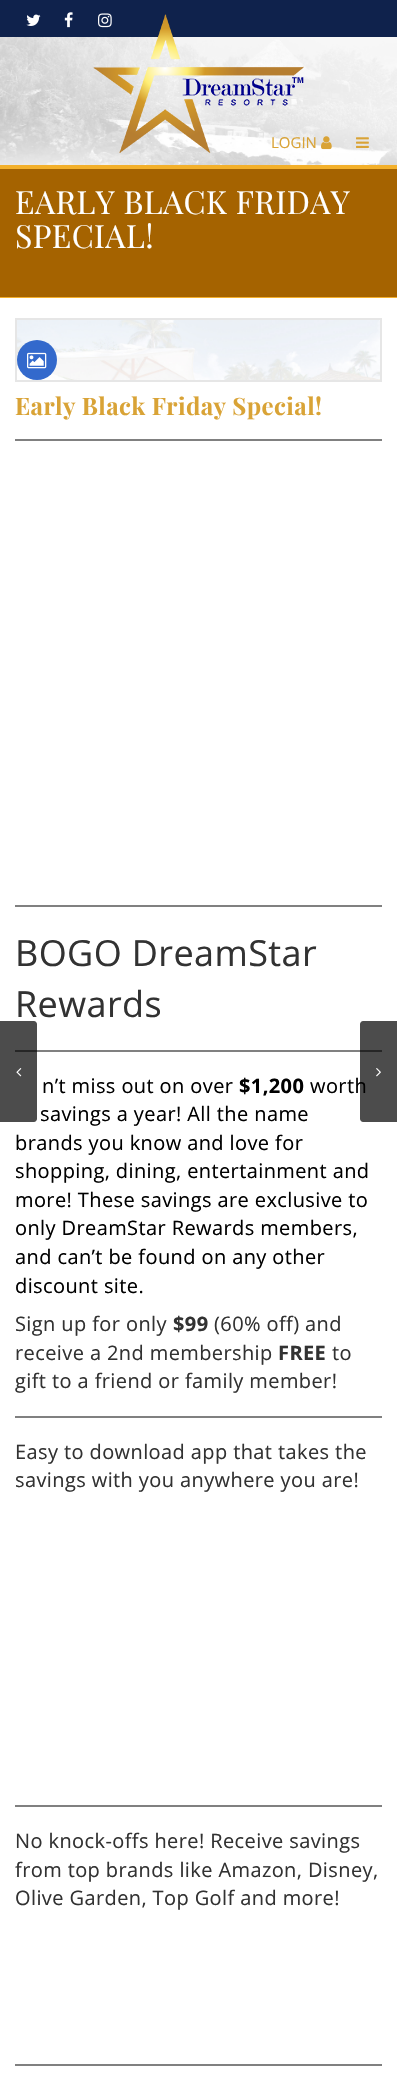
#include "include/core/SkBlurTypes.h"
#include "include/core/SkCanvas.h"
#include "include/core/SkData.h"
#include "include/core/SkFont.h"
#include "include/core/SkFontMgr.h"
#include "include/core/SkImage.h"
#include "include/core/SkMaskFilter.h"
#include "include/core/SkPaint.h"
#include "include/core/SkPathBuilder.h"
#include "include/core/SkTextBlob.h"
#include "include/effects/SkDashPathEffect.h"
#include "include/effects/SkGradientShader.h"
#include "include/utils/SkParsePath.h"

extern sk_sp<SkFontMgr> fontMgr;

void draw(SkCanvas* canvas) {
    SkPaint p;
    p.setAntiAlias(true);
    auto font = [&](const char* family, int weight, float size, bool italic = false) {
        SkFontStyle style(weight, SkFontStyle::kNormal_Width,
            italic ? SkFontStyle::kItalic_Slant : SkFontStyle::kUpright_Slant);
        SkFont result(fontMgr->matchFamilyStyle(family, style), size);
        result.setSubpixel(true);
        return result;
    };
    auto drawTracked = [&](const char* s, float x, float y, const SkFont& font, const SkPaint& ink, float letter, float word) {
        std::vector<SkGlyphID> glyphs(font.countText(s, strlen(s), SkTextEncoding::kUTF8));
        std::vector<float> xs(glyphs.size());
        font.textToGlyphs(s, strlen(s), SkTextEncoding::kUTF8, glyphs);
        font.getXPos(glyphs, xs, x);
        float extra = 0;
        for (size_t i = 0; i < glyphs.size(); i++) {
            xs[i] += extra;
            extra += letter + word * (glyphs[i] == font.unicharToGlyph(' '));
        }
        canvas->drawTextBlob(SkTextBlob::MakeFromPosHGlyphs(glyphs, xs, y, font), 0, 0, ink);
    };
    auto drawPhoto = [&](const char* path, float l, float t, float r, float b) {
        auto image = SkImages::DeferredFromEncodedData(SkData::MakeFromFileName(path));
        canvas->drawImageRect(image, SkRect::MakeLTRB(l, t, r, b), SkSamplingOptions());
    };
    canvas->clear(0xFFFFFFFF);
    p.setColor(0xFF0F224C);
    canvas->drawRect(SkRect::MakeLTRB(0, 0, 397, 37), p);
    drawPhoto("media/1.png", 26, 14, 41, 26);
    drawPhoto("media/2.png", 64, 12, 73, 28);
    drawPhoto("media/3.png", 98, 13, 112, 28);
    drawPhoto("media/4.png", 0, 37, 397, 165);
    drawPhoto("media/5.png", 93, 14, 304, 153);
    p.setColor(0xFFF3B02B);
    canvas->drawRect(SkRect::MakeLTRB(0, 165, 397, 169), p);
    auto font1 = font("Open Sans", 400, 15);
    p.setColor(0xFFD9A336);
    canvas->drawString("LOGIN", 271, 148, font1, p);
    drawPhoto("media/6.png", 321, 136, 332, 150);
    drawPhoto("media/7.png", 356, 137, 369, 148);
    p.setColor(0xFFA56300);
    canvas->drawRect(SkRect::MakeLTRB(0, 169, 397, 297), p);
    p.setColor(0xFFF3AF2B);
    canvas->drawRect(SkRect::MakeLTRB(0, 297, 397, 298), p);
    auto font2 = font("Playfair Display", 400, 32);
    p.setColor(0xFFFFFFFF);
    drawTracked("EARLY BLACK FRIDAY", 15, 214, font2, p, 0.4f, 0);
    drawTracked("SPECIAL!", 15, 248, font2, p, 0.4f, 0);
    drawPhoto("media/8.png", 17, 320, 380, 380);
    p.setStyle(SkPaint::kStroke_Style);
    p.setStrokeWidth(2);
    p.setColor(0xFFE6E6E6);
    canvas->drawRect(SkRect::MakeLTRB(16, 319, 381, 381), p);
    p.setStyle(SkPaint::kFill_Style);
    p.setColor(0xFF3369CC);
    canvas->drawCircle(37, 360, 20, p);
    drawPhoto("media/9.png", 27, 352, 47, 369);
    auto font3 = font("Playfair Display", 700, 24);
    p.setColor(0xFFD9A336);
    drawTracked("Early Black Friday Special!", 15, 415, font3, p, 0.4f, 0);
    p.setColor(0xFF808080);
    canvas->drawRect(SkRect::MakeLTRB(15, 439, 382, 441), p);
    canvas->drawRect(SkRect::MakeLTRB(15, 905, 382, 907), p);
    auto font4 = font("Open Sans", 400, 36);
    p.setColor(0xFF323232);
    drawTracked("BOGO DreamStar", 15, 966, font4, p, 0.4f, 0);
    drawTracked("Rewards", 15, 1017, font4, p, 0.4f, 0);
    p.setColor(0xFF808080);
    canvas->drawRect(SkRect::MakeLTRB(15, 1050, 382, 1052), p);
    auto font5 = font("Open Sans", 400, 20);
    p.setColor(0xFF000000);
    drawTracked("n’t miss out on over", 42, 1093, font5, p, 0.4f, 0);
    auto font6 = font("Open Sans", 700, 20);
    drawTracked("$1,200", 239, 1093, font6, p, 0.4f, 0);
    {
        const struct { const char* s; float x, y; } items[] = {
            {"worth", 310, 1093},
            {"savings a year! All the name", 40, 1121},
            {"brands you know and love for", 15, 1150},
            {"shopping, dining, entertainment and", 15, 1178},
            {"more! These savings are exclusive to", 15, 1207},
            {"only DreamStar Rewards members,", 15, 1235},
            {"and can’t be found on any other", 15, 1264},
            {"discount site.", 15, 1293},
        };
        for (auto [s, x, y] : items) {
            drawTracked(s, x, y, font5, p, 0.4f, 0);
        }
    }
    p.setColor(0xFF323232);
    drawTracked("Sign up for only", 15, 1331, font5, p, 0.4f, 0);
    drawTracked("$99", 173, 1331, font6, p, 0.4f, 0);
    drawTracked("(60% off) and", 214, 1331, font5, p, 0.4f, 0);
    drawTracked("receive a 2nd membership", 15, 1360, font5, p, 0.4f, 0);
    drawTracked("FREE", 278, 1360, font6, p, 0.4f, 0);
    drawTracked("to", 332, 1360, font5, p, 0.4f, 0);
    drawTracked("gift to a friend or family member!", 15, 1388, font5, p, 0.4f, 0);
    p.setColor(0xFF808080);
    canvas->drawRect(SkRect::MakeLTRB(15, 1416, 382, 1418), p);
    p.setColor(0xFF323232);
    drawTracked("Easy to download app that takes the", 15, 1459, font5, p, 0.4f, 0);
    drawTracked("savings with you anywhere you are!", 15, 1487, font5, p, 0.4f, 0);
    p.setColor(0xFF808080);
    canvas->drawRect(SkRect::MakeLTRB(15, 1805, 382, 1807), p);
    p.setColor(0xFF323232);
    {
        const struct { const char* s; float x, y; } items[] = {
            {"No knock-offs here! Receive savings", 15, 1848},
            {"from top brands like Amazon, Disney,", 15, 1877},
            {"Olive Garden, Top Golf and more!", 15, 1905},
        };
        for (auto [s, x, y] : items) {
            drawTracked(s, x, y, font5, p, 0.4f, 0);
        }
    }
    p.setColor(0xFF808080);
    canvas->drawRect(SkRect::MakeLTRB(15, 2064, 382, 2066), p);
    p.setColor(0xB3000000);
    canvas->drawPath(SkPathBuilder().moveTo(0, 1021).lineTo(34, 1021).cubicTo(35.5f, 1021, 37, 1022.5f, 37, 1024).lineTo(37, 1119).cubicTo(37, 1120.5f, 35.5f, 1122, 34, 1122).lineTo(0, 1122).close().detach(), p);
    drawPhoto("media/10.png", 16, 1068, 22, 1077);
    canvas->drawPath(SkPathBuilder().moveTo(363, 1021).lineTo(397, 1021).lineTo(397, 1122).lineTo(363, 1122).cubicTo(361.5f, 1122, 360, 1120.5f, 360, 1119).lineTo(360, 1024).cubicTo(360, 1022.5f, 361.5f, 1021, 363, 1021).close().detach(), p);
    drawPhoto("media/11.png", 376, 1068, 381, 1077);
}
